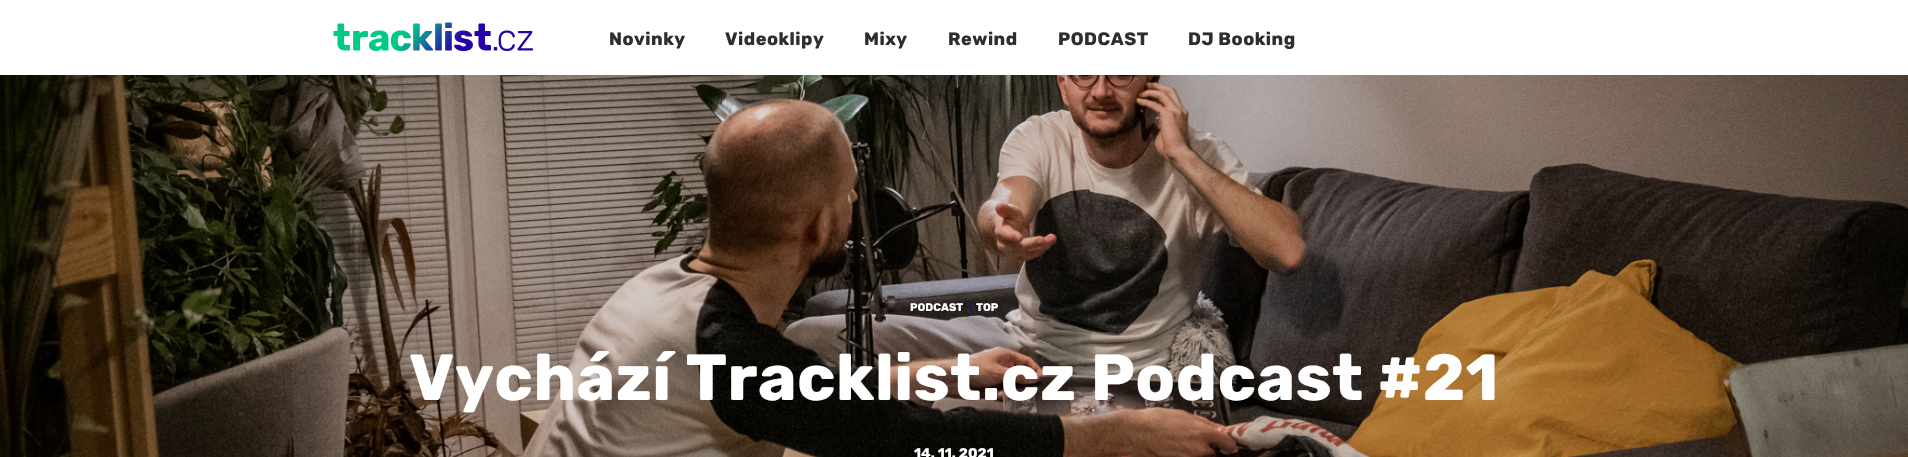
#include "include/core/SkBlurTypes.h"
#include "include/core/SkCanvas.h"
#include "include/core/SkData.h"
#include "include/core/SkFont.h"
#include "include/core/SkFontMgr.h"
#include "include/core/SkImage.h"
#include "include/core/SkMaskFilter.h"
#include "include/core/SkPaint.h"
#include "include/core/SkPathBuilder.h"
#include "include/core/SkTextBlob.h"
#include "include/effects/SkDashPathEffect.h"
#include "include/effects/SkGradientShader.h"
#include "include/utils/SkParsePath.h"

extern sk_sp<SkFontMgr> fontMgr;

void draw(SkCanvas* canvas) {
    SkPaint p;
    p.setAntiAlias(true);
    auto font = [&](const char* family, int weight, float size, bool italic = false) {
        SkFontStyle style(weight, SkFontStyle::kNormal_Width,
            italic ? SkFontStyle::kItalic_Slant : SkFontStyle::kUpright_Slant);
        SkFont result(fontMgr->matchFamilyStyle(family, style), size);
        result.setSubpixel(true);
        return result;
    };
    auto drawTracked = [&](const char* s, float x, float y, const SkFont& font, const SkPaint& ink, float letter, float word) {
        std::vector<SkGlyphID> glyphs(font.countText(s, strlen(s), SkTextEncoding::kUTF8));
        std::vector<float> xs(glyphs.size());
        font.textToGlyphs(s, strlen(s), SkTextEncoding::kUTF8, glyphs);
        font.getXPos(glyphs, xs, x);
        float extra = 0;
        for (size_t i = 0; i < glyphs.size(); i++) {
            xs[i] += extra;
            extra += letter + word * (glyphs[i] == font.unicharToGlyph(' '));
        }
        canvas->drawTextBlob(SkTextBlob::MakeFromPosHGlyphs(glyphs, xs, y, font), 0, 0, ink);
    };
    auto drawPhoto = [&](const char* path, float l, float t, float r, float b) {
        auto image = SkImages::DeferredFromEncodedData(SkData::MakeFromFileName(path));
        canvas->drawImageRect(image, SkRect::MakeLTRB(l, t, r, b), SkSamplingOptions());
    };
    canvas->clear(0xFFFFFFFF);
    drawPhoto("media/1.png", 333, 22, 534, 51);
    auto font1 = font("Rubik", 700, 18);
    p.setColor(0xFF2E2E2E);
    {
        const struct { const char* s; float x, y; } items[] = {
            {"Novinky", 609, 45},
            {"Videoklipy", 725, 45},
            {"Mixy", 864, 45},
            {"Rewind", 948, 45},
            {"PODCAST", 1058, 45},
            {"DJ Booking", 1188, 45},
        };
        for (auto [s, x, y] : items) {
            drawTracked(s, x, y, font1, p, 0.5f, 0);
        }
    }
    drawPhoto("media/2.png", 0, 75, 1908, 457);
    auto font2 = font("Rubik", 700, 11);
    p.setColor(0xFFFFFFFF);
    canvas->drawString("PODCAST", 910, 311, font2, p);
    p.setColor(0xFF0011CA);
    canvas->drawString("·", 968, 311, font2, p);
    p.setColor(0xFFFFFFFF);
    canvas->drawString("TOP", 976, 311, font2, p);
    auto font3 = font("Rubik", 700, 65);
    drawTracked("Vychází Tracklist.cz Podcast #21", 409, 400, font3, p, 0.5f, 0);
    auto font4 = font("Rubik", 700, 14);
    canvas->drawString("14. 11. 2021", 914, 458, font4, p);
}
